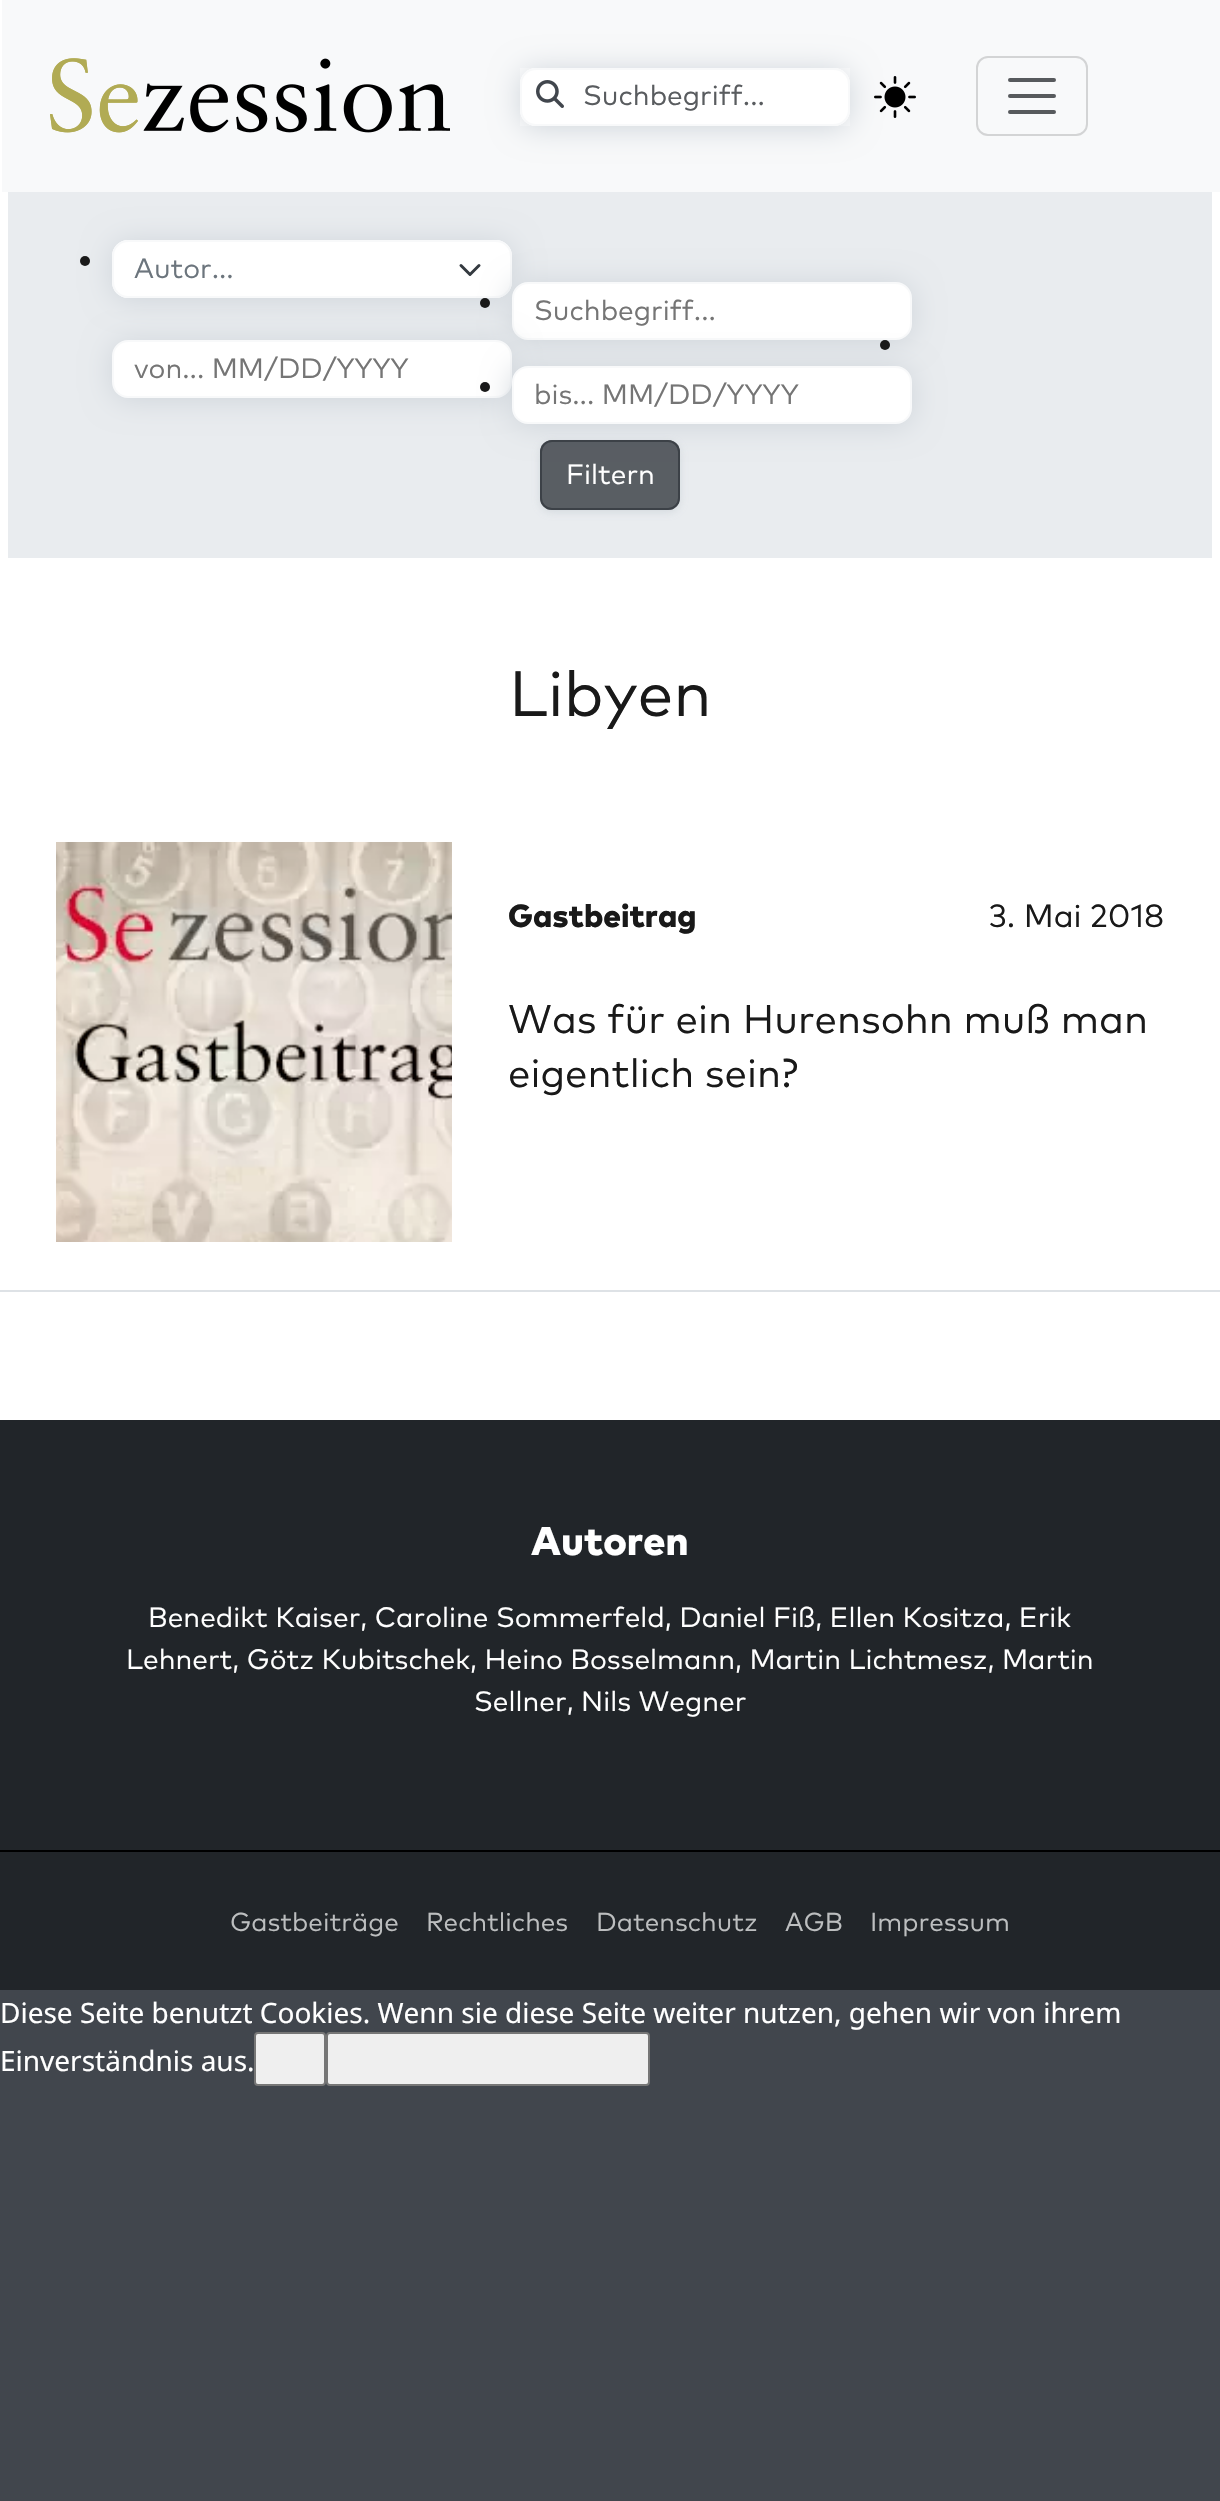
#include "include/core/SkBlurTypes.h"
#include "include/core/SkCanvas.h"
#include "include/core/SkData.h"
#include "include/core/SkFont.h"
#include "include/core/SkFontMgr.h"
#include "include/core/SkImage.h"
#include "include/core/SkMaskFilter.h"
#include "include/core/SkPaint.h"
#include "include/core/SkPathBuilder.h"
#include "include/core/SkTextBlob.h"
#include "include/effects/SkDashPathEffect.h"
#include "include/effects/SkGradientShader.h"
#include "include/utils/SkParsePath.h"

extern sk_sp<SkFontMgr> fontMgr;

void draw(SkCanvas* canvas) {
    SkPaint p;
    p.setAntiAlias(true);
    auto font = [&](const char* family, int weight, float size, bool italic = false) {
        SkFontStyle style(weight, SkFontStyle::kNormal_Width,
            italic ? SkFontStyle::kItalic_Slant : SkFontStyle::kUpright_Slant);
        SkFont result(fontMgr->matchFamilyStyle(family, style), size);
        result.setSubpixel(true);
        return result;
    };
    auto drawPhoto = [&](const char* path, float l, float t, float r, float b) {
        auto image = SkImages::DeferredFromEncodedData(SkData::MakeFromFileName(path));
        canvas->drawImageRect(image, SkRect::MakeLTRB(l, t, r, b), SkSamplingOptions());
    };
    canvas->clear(0xFF41464D);
    p.setColor(0xFFFFFFFF);
    canvas->drawRect(SkRect::MakeLTRB(0, 0, 1220, 1420), p);
    p.setColor(0xFFF8F9FA);
    canvas->drawRect(SkRect::MakeLTRB(2, 0, 1220, 192), p);
    drawPhoto("media/1.png", 50, 58, 450, 133);
    p.setColor(0xFFFFFFFF);
    canvas->drawRect(SkRect::MakeLTRB(520, 68, 850, 126), p);
    canvas->save();
    canvas->clipPath(SkPathBuilder(SkPathFillType::kEvenOdd).moveTo(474, 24).lineTo(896, 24).lineTo(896, 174).lineTo(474, 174).close().moveTo(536, 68).lineTo(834, 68).cubicTo(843, 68, 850, 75, 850, 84).lineTo(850, 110).cubicTo(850, 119, 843, 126, 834, 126).lineTo(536, 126).cubicTo(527, 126, 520, 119, 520, 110).lineTo(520, 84).cubicTo(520, 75, 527, 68, 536, 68).close().detach(), true);
    p.setColor(0xFFCED4DA);
    p.setMaskFilter(SkMaskFilter::MakeBlur(kNormal_SkBlurStyle, 15));
    canvas->drawRoundRect(SkRect::MakeLTRB(520, 70, 850, 128), 16, 16, p);
    p.setMaskFilter(nullptr);
    canvas->restore();
    p.setStyle(SkPaint::kStroke_Style);
    p.setStrokeWidth(2);
    p.setColor(0xFFF8F9FA);
    canvas->drawRoundRect(SkRect::MakeLTRB(521, 69, 849, 125), 15, 15, p);
    drawPhoto("media/2.png", 536, 80, 564, 108);
    auto font1 = font("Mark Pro", 400, 28);
    p.setStyle(SkPaint::kFill_Style);
    p.setColor(0xFF595C5F);
    canvas->drawString("Suchbegriff...", 583, 105, font1, p);
    drawPhoto("media/3.png", 874, 76, 916, 118);
    p.setStyle(SkPaint::kStroke_Style);
    p.setColor(0xFFD3D4D5);
    canvas->drawRoundRect(SkRect::MakeLTRB(977, 57, 1087, 135), 11, 11, p);
    p.setStrokeWidth(4);
    p.setStrokeCap(SkPaint::kRound_Cap);
    p.setColor(0xFF575A5D);
    canvas->drawPath(SkPathBuilder().moveTo(1010, 80).lineTo(1054, 80).moveTo(1010, 96).lineTo(1054, 96).moveTo(1010, 112).lineTo(1054, 112).detach(), p);
    p.setStyle(SkPaint::kFill_Style);
    p.setColor(0xFFE9ECEF);
    canvas->drawRect(SkRect::MakeLTRB(8, 192, 1212, 558), p);
    p.setColor(0xFFCED4DA);
    p.setMaskFilter(SkMaskFilter::MakeBlur(kNormal_SkBlurStyle, 15));
    canvas->drawRoundRect(SkRect::MakeLTRB(112, 242, 512, 300), 16, 16, p);
    p.setMaskFilter(nullptr);
    p.setColor(0xFF191919);
    canvas->drawCircle(85, 261, 5, p);
    p.setColor(0xFFFFFFFF);
    canvas->drawRoundRect(SkRect::MakeLTRB(112, 240, 512, 298), 16, 16, p);
    p.setStyle(SkPaint::kStroke_Style);
    p.setStrokeWidth(3);
    p.setStrokeJoin(SkPaint::kRound_Join);
    p.setColor(0xFF343A40);
    canvas->drawPath(SkPathBuilder().moveTo(461, 265.5f).lineTo(470, 274.5f).lineTo(479, 265.5f).detach(), p);
    p.setStrokeWidth(2);
    p.setStrokeCap(SkPaint::kButt_Cap);
    p.setStrokeJoin(SkPaint::kMiter_Join);
    p.setColor(0xFFF8F9FA);
    canvas->drawRoundRect(SkRect::MakeLTRB(113, 241, 511, 297), 15, 15, p);
    p.setStyle(SkPaint::kFill_Style);
    p.setColor(0xFF6C757D);
    canvas->drawString("Autor...", 134, 278, font1, p);
    p.setColor(0xFFCED4DA);
    p.setMaskFilter(SkMaskFilter::MakeBlur(kNormal_SkBlurStyle, 15));
    canvas->drawRoundRect(SkRect::MakeLTRB(512, 284, 912, 342), 16, 16, p);
    p.setMaskFilter(nullptr);
    p.setColor(0xFFFFFFFF);
    canvas->drawRoundRect(SkRect::MakeLTRB(513, 283, 911, 339), 15, 15, p);
    p.setStyle(SkPaint::kStroke_Style);
    p.setColor(0xFFF8F9FA);
    canvas->drawRoundRect(SkRect::MakeLTRB(513, 283, 911, 339), 15, 15, p);
    p.setStyle(SkPaint::kFill_Style);
    p.setColor(0xFFCED4DA);
    p.setMaskFilter(SkMaskFilter::MakeBlur(kNormal_SkBlurStyle, 15));
    canvas->drawRoundRect(SkRect::MakeLTRB(112, 342, 512, 400), 16, 16, p);
    p.setMaskFilter(nullptr);
    p.setColor(0xFF191919);
    canvas->drawCircle(485, 303, 5, p);
    p.setColor(0xFF757575);
    canvas->drawString("Suchbegriff...", 534, 320, font1, p);
    p.setColor(0xFFFFFFFF);
    canvas->drawRoundRect(SkRect::MakeLTRB(113, 341, 511, 397), 15, 15, p);
    p.setStyle(SkPaint::kStroke_Style);
    p.setColor(0xFFF8F9FA);
    canvas->drawRoundRect(SkRect::MakeLTRB(113, 341, 511, 397), 15, 15, p);
    p.setStyle(SkPaint::kFill_Style);
    p.setColor(0xFFCED4DA);
    p.setMaskFilter(SkMaskFilter::MakeBlur(kNormal_SkBlurStyle, 15));
    canvas->drawRoundRect(SkRect::MakeLTRB(512, 368, 912, 426), 16, 16, p);
    p.setMaskFilter(nullptr);
    p.setColor(0xFF191919);
    canvas->drawCircle(885, 345, 5, p);
    p.setColor(0xFF757575);
    canvas->drawString("von... MM/DD/YYYY", 134, 378, font1, p);
    p.setColor(0xFF191919);
    canvas->drawCircle(485, 387, 5, p);
    p.setColor(0xFFFFFFFF);
    canvas->drawRoundRect(SkRect::MakeLTRB(513, 367, 911, 423), 15, 15, p);
    p.setStyle(SkPaint::kStroke_Style);
    p.setColor(0xFFF8F9FA);
    canvas->drawRoundRect(SkRect::MakeLTRB(513, 367, 911, 423), 15, 15, p);
    p.setStyle(SkPaint::kFill_Style);
    p.setColor(0xFF757575);
    canvas->drawString("bis... MM/DD/YYYY", 534, 404, font1, p);
    canvas->save();
    canvas->clipPath(SkPathBuilder(SkPathFillType::kEvenOdd).moveTo(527, 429).lineTo(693, 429).lineTo(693, 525).lineTo(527, 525).close().moveTo(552, 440).lineTo(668, 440).cubicTo(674.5f, 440, 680, 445.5f, 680, 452).lineTo(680, 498).cubicTo(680, 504.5f, 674.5f, 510, 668, 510).lineTo(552, 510).cubicTo(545.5f, 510, 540, 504.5f, 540, 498).lineTo(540, 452).cubicTo(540, 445.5f, 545.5f, 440, 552, 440).close().detach(), true);
    p.setColor(0xCCCED4DA);
    p.setMaskFilter(SkMaskFilter::MakeBlur(kNormal_SkBlurStyle, 4));
    canvas->drawRoundRect(SkRect::MakeLTRB(540, 442, 680, 512), 12, 12, p);
    p.setMaskFilter(nullptr);
    canvas->restore();
    p.setColor(0xCC343A40);
    canvas->drawRoundRect(SkRect::MakeLTRB(540, 440, 680, 510), 12, 12, p);
    p.setStyle(SkPaint::kStroke_Style);
    canvas->drawRoundRect(SkRect::MakeLTRB(541, 441, 679, 509), 11, 11, p);
    p.setStyle(SkPaint::kFill_Style);
    p.setColor(0xFFFFFFFF);
    canvas->drawString("Filtern", 566, 484, font1, p);
    auto font2 = font("Mark Pro", 400, 64);
    p.setColor(0xFF191919);
    canvas->drawString("Libyen", 509, 716, font2, p);
    p.setColor(0xFFDEE2E6);
    canvas->drawRect(SkRect::MakeLTRB(0, 1290, 1220, 1292), p);
    drawPhoto("media/4.png", 56, 842, 452, 1242);
    auto font3 = font("Mark Pro", 900, 32);
    p.setColor(0xFF191919);
    canvas->drawString("Gastbeitrag", 508, 927, font3, p);
    auto font4 = font("Mark Pro", 400, 32);
    canvas->drawString("3. Mai 2018", 989, 927, font4, p);
    auto font5 = font("Mark Pro", 400, 40);
    canvas->drawString("Was für ein Hurensohn muß man", 508, 1033, font5, p);
    canvas->drawString("eigentlich sein?", 508, 1087, font5, p);
    p.setColor(0xFF212529);
    canvas->drawRect(SkRect::MakeLTRB(0, 1420, 1220, 1990), p);
    auto font6 = font("Mark Pro", 900, 40);
    p.setColor(0xFFFFFFFF);
    canvas->drawString("Autoren", 531, 1555, font6, p);
    {
        const struct { const char* s; float x, y; } items[] = {
            {"Benedikt Kaiser, Caroline Sommerfeld, Daniel Fiß, Ellen Kositza, Erik", 148, 1627},
            {"Lehnert, Götz Kubitschek, Heino Bosselmann, Martin Lichtmesz, Martin", 126, 1669},
            {"Sellner, Nils Wegner", 474, 1711},
        };
        for (auto [s, x, y] : items) {
            canvas->drawString(s, x, y, font1, p);
        }
    }
    p.setColor(0xFF000000);
    canvas->drawRect(SkRect::MakeLTRB(0, 1850, 1220, 1852), p);
    auto font7 = font("Mark Pro", 400, 26);
    p.setColor(0xFFBCBEBF);
    {
        const struct { const char* s; float x, y; } items[] = {
            {"Gastbeiträge", 230, 1931},
            {"Rechtliches", 426, 1931},
            {"Datenschutz", 596, 1931},
            {"AGB", 785, 1931},
            {"Impressum", 870, 1931},
        };
        for (auto [s, x, y] : items) {
            canvas->drawString(s, x, y, font7, p);
        }
    }
    auto font8 = font("Noto Sans", 400, 28);
    p.setColor(0xFFFFFFFF);
    canvas->drawString("Diese Seite benutzt Cookies. Wenn sie diese Seite weiter nutzen, gehen wir von ihrem", 0, 2023, font8, p);
    canvas->drawString("Einverständnis aus.", 0, 2071, font8, p);
    p.setColor(0xFFEFEFEF);
    canvas->drawRoundRect(SkRect::MakeLTRB(255, 2033, 325, 2085), 3, 3, p);
    p.setStyle(SkPaint::kStroke_Style);
    p.setColor(0xFF767676);
    canvas->drawRoundRect(SkRect::MakeLTRB(255, 2033, 325, 2085), 3, 3, p);
    p.setStyle(SkPaint::kFill_Style);
    p.setColor(0xFFEFEFEF);
    canvas->drawRoundRect(SkRect::MakeLTRB(327, 2033, 649, 2085), 3, 3, p);
    p.setStyle(SkPaint::kStroke_Style);
    p.setColor(0xFF767676);
    canvas->drawRoundRect(SkRect::MakeLTRB(327, 2033, 649, 2085), 3, 3, p);
}
